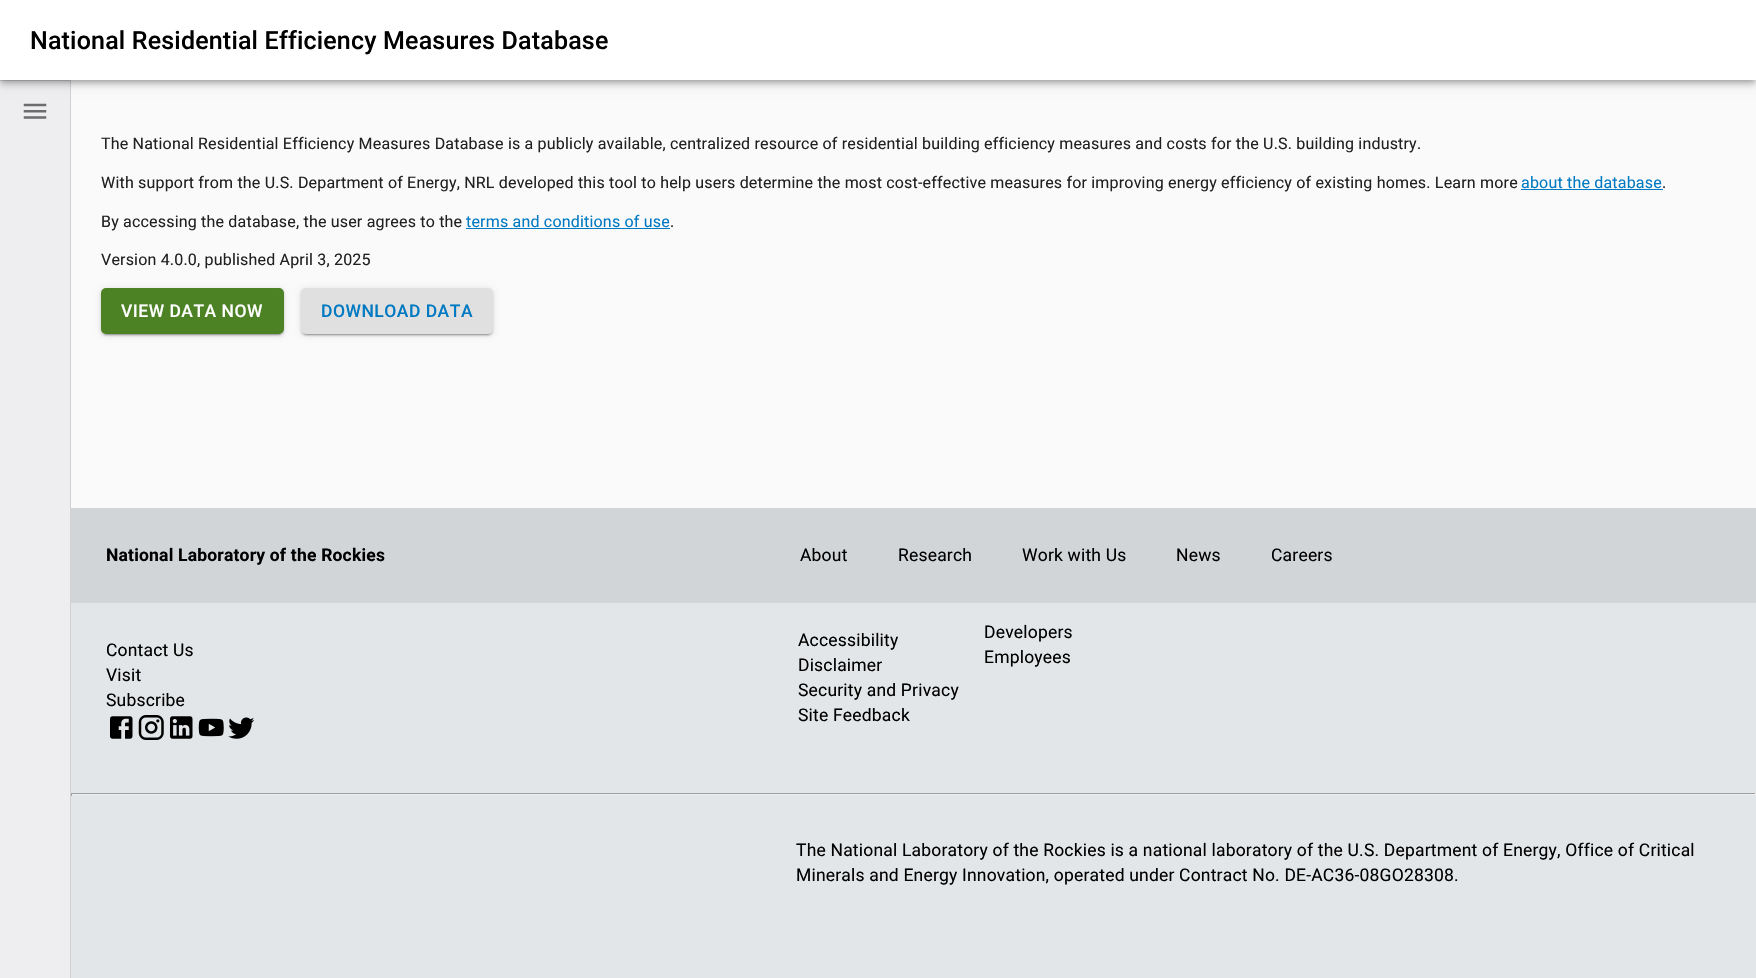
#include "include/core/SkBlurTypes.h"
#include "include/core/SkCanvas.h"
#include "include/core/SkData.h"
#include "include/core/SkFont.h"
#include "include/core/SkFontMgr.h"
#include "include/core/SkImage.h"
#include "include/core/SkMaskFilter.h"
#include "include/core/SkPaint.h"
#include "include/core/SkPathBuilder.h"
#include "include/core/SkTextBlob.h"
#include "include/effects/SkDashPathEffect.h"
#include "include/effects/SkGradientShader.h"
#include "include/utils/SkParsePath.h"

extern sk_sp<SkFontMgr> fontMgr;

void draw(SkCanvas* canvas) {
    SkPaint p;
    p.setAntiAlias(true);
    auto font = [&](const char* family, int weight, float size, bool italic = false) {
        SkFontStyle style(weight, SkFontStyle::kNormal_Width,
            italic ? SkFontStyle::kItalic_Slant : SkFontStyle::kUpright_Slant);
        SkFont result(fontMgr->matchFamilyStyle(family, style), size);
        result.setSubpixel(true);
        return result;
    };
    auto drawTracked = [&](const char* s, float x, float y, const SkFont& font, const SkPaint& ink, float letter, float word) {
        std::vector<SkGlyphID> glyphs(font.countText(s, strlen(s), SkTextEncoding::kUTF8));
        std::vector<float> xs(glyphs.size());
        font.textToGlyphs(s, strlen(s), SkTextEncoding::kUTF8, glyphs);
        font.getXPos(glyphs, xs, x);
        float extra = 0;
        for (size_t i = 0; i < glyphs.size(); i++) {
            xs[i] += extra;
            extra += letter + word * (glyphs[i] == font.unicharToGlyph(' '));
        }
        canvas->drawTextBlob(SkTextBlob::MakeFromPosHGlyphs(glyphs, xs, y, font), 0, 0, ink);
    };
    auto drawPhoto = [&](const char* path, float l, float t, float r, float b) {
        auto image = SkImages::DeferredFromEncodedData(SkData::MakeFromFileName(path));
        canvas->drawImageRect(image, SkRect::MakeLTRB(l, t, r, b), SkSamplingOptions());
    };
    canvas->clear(0xFFFAFAFA);
    {
        const struct { float l, t, r, b; SkColor color; } items[] = {
            {0, 81, 70, 978, 0xFFEEEDEF},
            {70, 80, 71, 978, 0xFFD1D1D2},
            {0, 80, 70, 81, 0xFFD1D1D2},
        };
        for (auto [l, t, r, b, color] : items) {
            p.setColor(color);
            canvas->drawRect(SkRect::MakeLTRB(l, t, r, b), p);
        }
    }
    p.setColor(0x1F000000);
    p.setMaskFilter(SkMaskFilter::MakeBlur(kNormal_SkBlurStyle, 6));
    canvas->drawRect(SkRect::MakeLTRB(0, 1, 1756, 81), p);
    p.setMaskFilter(nullptr);
    p.setColor(0x24000000);
    p.setMaskFilter(SkMaskFilter::MakeBlur(kNormal_SkBlurStyle, 3));
    canvas->drawRect(SkRect::MakeLTRB(0, 5, 1756, 85), p);
    p.setMaskFilter(nullptr);
    p.setColor(0x33000000);
    p.setMaskFilter(SkMaskFilter::MakeBlur(kNormal_SkBlurStyle, 2.5f));
    canvas->drawRect(SkRect::MakeLTRB(1, 4, 1755, 81), p);
    p.setMaskFilter(nullptr);
    p.setColor(0xFFFFFFFF);
    canvas->drawRect(SkRect::MakeLTRB(0, 0, 1756, 80), p);
    auto font1 = font("Roboto", 500, 25);
    p.setColor(0xFF000000);
    drawTracked("National Residential Efficiency Measures Database", 30, 49, font1, p, 0.19f, 0);
    drawPhoto("media/1.png", 23, 103, 47, 119);
    auto font2 = font("Roboto", 400, 16);
    p.setColor(0xFF212121);
    drawTracked("The National Residential Efficiency Measures Database is a publicly available, centralized resource of residential building efficiency measures and costs for the U.S. building industry.", 101, 149, font2, p, 0.19f, 0);
    drawTracked("With support from the U.S. Department of Energy, NRL developed this tool to help users determine the most cost-effective measures for improving energy efficiency of existing homes. Learn more", 101, 188, font2, p, 0.19f, 0);
    p.setColor(0xFF0079C3);
    drawTracked("about the database", 1521, 188, font2, p, 0.19f, 0);
    canvas->drawRect(SkRect::MakeLTRB(1521, 189, 1663, 190), p);
    p.setColor(0xFF212121);
    drawTracked(".", 1662, 188, font2, p, 0.19f, 0);
    drawTracked("By accessing the database, the user agrees to the", 101, 227, font2, p, 0.19f, 0);
    p.setColor(0xFF0079C3);
    drawTracked("terms and conditions of use", 466, 227, font2, p, 0.19f, 0);
    canvas->drawRect(SkRect::MakeLTRB(466, 228, 670, 229), p);
    p.setColor(0xFF212121);
    drawTracked(".", 670, 227, font2, p, 0.19f, 0);
    drawTracked("Version 4.0.0, published April 3, 2025", 101, 265, font2, p, 0.19f, 0);
    p.setColor(0x1F000000);
    p.setMaskFilter(SkMaskFilter::MakeBlur(kNormal_SkBlurStyle, 3));
    canvas->drawRoundRect(SkRect::MakeLTRB(101, 289, 284, 335), 5, 5, p);
    p.setMaskFilter(nullptr);
    p.setColor(0x24000000);
    p.setMaskFilter(SkMaskFilter::MakeBlur(kNormal_SkBlurStyle, 1));
    canvas->drawRoundRect(SkRect::MakeLTRB(101, 290, 284, 336), 5, 5, p);
    p.setMaskFilter(nullptr);
    p.setColor(0x33000000);
    p.setMaskFilter(SkMaskFilter::MakeBlur(kNormal_SkBlurStyle, 0.5f));
    canvas->drawRoundRect(SkRect::MakeLTRB(104, 294, 281, 335), 2.5f, 2.5f, p);
    p.setMaskFilter(nullptr);
    p.setColor(0xFF4C8224);
    canvas->drawRoundRect(SkRect::MakeLTRB(101, 288, 284, 334), 5, 5, p);
    auto font3 = font("Roboto", 500, 17.5f);
    p.setColor(0xFFFFFFFF);
    drawTracked("VIEW DATA NOW", 121, 317, font3, p, 0.5f, 0);
    p.setColor(0x1F000000);
    p.setMaskFilter(SkMaskFilter::MakeBlur(kNormal_SkBlurStyle, 3));
    canvas->drawRoundRect(SkRect::MakeLTRB(301, 289, 493, 335), 5, 5, p);
    p.setMaskFilter(nullptr);
    p.setColor(0x24000000);
    p.setMaskFilter(SkMaskFilter::MakeBlur(kNormal_SkBlurStyle, 1));
    canvas->drawRoundRect(SkRect::MakeLTRB(301, 290, 493, 336), 5, 5, p);
    p.setMaskFilter(nullptr);
    p.setColor(0x33000000);
    p.setMaskFilter(SkMaskFilter::MakeBlur(kNormal_SkBlurStyle, 0.5f));
    canvas->drawRoundRect(SkRect::MakeLTRB(304, 294, 490, 335), 2.5f, 2.5f, p);
    p.setMaskFilter(nullptr);
    p.setColor(0xFFE0E0E0);
    canvas->drawRoundRect(SkRect::MakeLTRB(301, 288, 493, 334), 5, 5, p);
    p.setColor(0xFF0079C3);
    drawTracked("DOWNLOAD DATA", 321, 317, font3, p, 0.5f, 0);
    p.setColor(0xFFE3E6E8);
    canvas->drawRect(SkRect::MakeLTRB(71, 603, 1756, 978), p);
    p.setColor(0xFFD1D5D8);
    canvas->drawRect(SkRect::MakeLTRB(71, 508, 1756, 603), p);
    auto font4 = font("Roboto", 700, 17.5f);
    p.setColor(0xFF000000);
    drawTracked("National Laboratory of the Rockies", 106, 561, font4, p, 0.19f, 0);
    auto font5 = font("Roboto", 400, 17.5f);
    {
        const struct { const char* s; float x, y; } items[] = {
            {"About", 800, 561},
            {"Research", 898, 561},
            {"Work with Us", 1022, 561},
            {"News", 1176, 561},
            {"Careers", 1271, 561},
            {"Contact Us", 106, 656},
            {"Visit", 106, 681},
            {"Subscribe", 106, 706},
        };
        for (auto [s, x, y] : items) {
            drawTracked(s, x, y, font5, p, 0.19f, 0);
        }
    }
    drawPhoto("media/2.png", 110, 716, 133, 739);
    drawPhoto("media/3.png", 138, 715, 164, 740);
    drawPhoto("media/4.png", 170, 716, 193, 739);
    drawPhoto("media/5.png", 198, 718, 224, 737);
    drawPhoto("media/6.png", 228, 717, 255, 739);
    {
        const struct { const char* s; float x, y; } items[] = {
            {"Accessibility", 798, 646},
            {"Disclaimer", 798, 671},
            {"Security and Privacy", 798, 696},
            {"Site Feedback", 798, 721},
            {"Developers", 984, 638},
            {"Employees", 984, 663},
        };
        for (auto [s, x, y] : items) {
            drawTracked(s, x, y, font5, p, 0.19f, 0);
        }
    }
    {
        const struct { float l, t, r, b; SkColor color; } items[] = {
            {71, 793, 1756, 794, 0xFF9F9F9F},
            {1755, 793, 1756, 796, 0xFFEEEEEE},
            {71, 794, 1756, 795, 0xFFEEEEEE},
            {71, 793, 72, 796, 0xFF9F9F9F},
        };
        for (auto [l, t, r, b, color] : items) {
            p.setColor(color);
            canvas->drawRect(SkRect::MakeLTRB(l, t, r, b), p);
        }
    }
    p.setColor(0xFF000000);
    drawTracked("The National Laboratory of the Rockies is a national laboratory of the U.S. Department of Energy, Office of Critical", 796, 856, font5, p, 0.19f, 0);
    drawTracked("Minerals and Energy Innovation, operated under Contract No. DE-AC36-08GO28308.", 796, 881, font5, p, 0.19f, 0);
}
